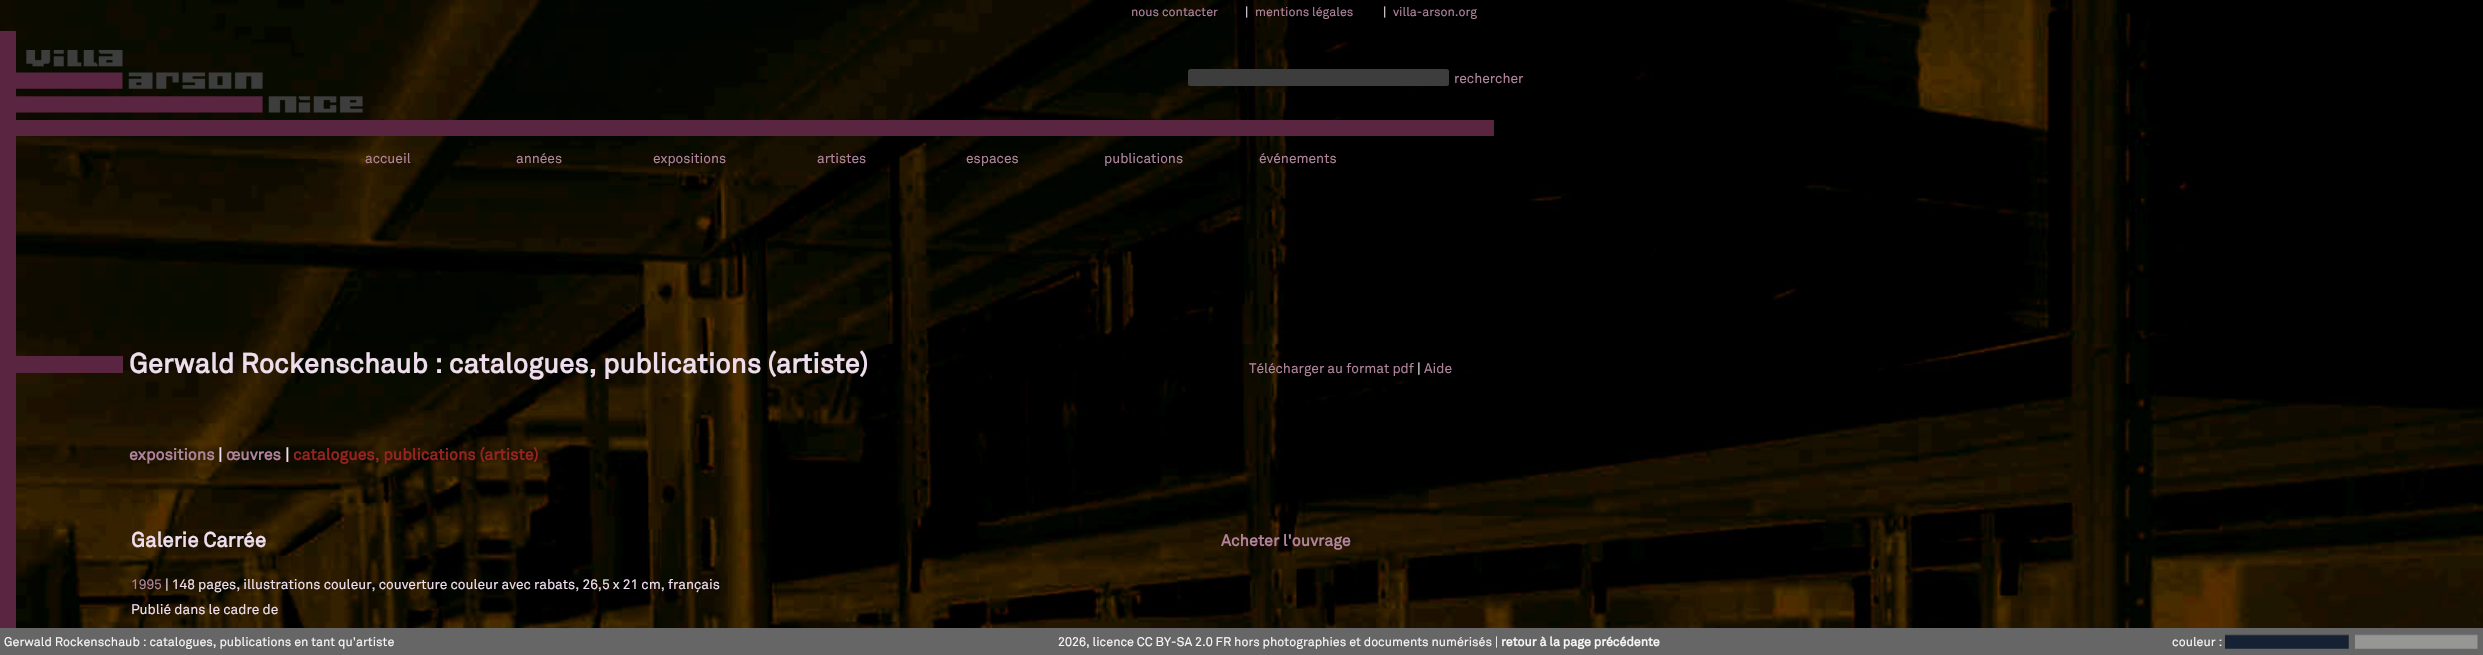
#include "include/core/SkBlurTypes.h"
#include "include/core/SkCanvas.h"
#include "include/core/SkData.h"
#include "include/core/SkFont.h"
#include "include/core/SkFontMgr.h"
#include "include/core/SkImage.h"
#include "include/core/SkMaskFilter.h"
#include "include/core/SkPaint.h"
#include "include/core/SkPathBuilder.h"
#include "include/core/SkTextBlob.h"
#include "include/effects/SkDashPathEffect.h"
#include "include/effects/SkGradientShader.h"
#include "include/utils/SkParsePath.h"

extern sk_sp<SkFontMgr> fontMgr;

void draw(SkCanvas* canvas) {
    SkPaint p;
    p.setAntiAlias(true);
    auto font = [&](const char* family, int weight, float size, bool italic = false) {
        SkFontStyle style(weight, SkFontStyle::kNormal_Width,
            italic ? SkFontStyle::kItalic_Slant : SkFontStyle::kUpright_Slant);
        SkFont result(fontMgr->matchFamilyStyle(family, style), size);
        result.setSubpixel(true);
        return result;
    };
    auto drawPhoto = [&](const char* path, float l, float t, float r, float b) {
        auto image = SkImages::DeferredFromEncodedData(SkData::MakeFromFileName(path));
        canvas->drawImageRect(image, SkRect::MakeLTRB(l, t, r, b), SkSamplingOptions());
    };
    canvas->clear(0xFFFFFFFF);
    drawPhoto("media/1.png", 0, 0, 2483, 628);
    auto font1 = font("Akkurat", 400, 12.5f);
    p.setColor(0xFFB1849D);
    canvas->drawString("nous contacter", 1131, 16, font1, p);
    p.setColor(0xFFEEDEED);
    canvas->drawString("|", 1245, 16, font1, p);
    p.setColor(0xFFB1849D);
    canvas->drawString("mentions légales", 1255, 16, font1, p);
    p.setColor(0xFFEEDEED);
    canvas->drawString("|", 1383, 16, font1, p);
    p.setColor(0xFFB1849D);
    canvas->drawString("villa-arson.org", 1393, 16, font1, p);
    p.setColor(0xFF5A2541);
    canvas->drawRect(SkRect::MakeLTRB(0, 31, 16, 628), p);
    drawPhoto("media/2.png", 16, 50, 363, 113);
    p.setColor(0xFF3D3D3D);
    canvas->drawRoundRect(SkRect::MakeLTRB(1188, 69, 1449, 86), 2.5f, 2.5f, p);
    auto font2 = font("Akkurat", 400, 13.75f);
    p.setColor(0xFFB1849D);
    canvas->drawString("rechercher", 1454, 83, font2, p);
    p.setColor(0xFF5A2541);
    canvas->drawRect(SkRect::MakeLTRB(16, 120, 1494, 136), p);
    p.setColor(0xFFB1849D);
    {
        const struct { const char* s; float x, y; } items[] = {
            {"accueil", 365, 163},
            {"années", 516, 163},
            {"expositions", 653, 163},
            {"artistes", 817, 163},
            {"espaces", 966, 163},
            {"publications", 1104, 163},
            {"événements", 1259, 163},
        };
        for (auto [s, x, y] : items) {
            canvas->drawString(s, x, y, font2, p);
        }
    }
    p.setColor(0xFF5A2541);
    canvas->drawRect(SkRect::MakeLTRB(16, 356, 123, 373), p);
    auto font3 = font("Akkurat", 700, 27.5f);
    p.setColor(0xFFEEDEED);
    canvas->drawString("Gerwald Rockenschaub : catalogues, publications (artiste)", 129, 373, font3, p);
    p.setColor(0xFFB1849D);
    canvas->drawString("Télécharger au format pdf", 1249, 373, font2, p);
    p.setColor(0xFFEEDEED);
    canvas->drawString("|", 1417, 373, font2, p);
    p.setColor(0xFFB1849D);
    canvas->drawString("Aide", 1424, 373, font2, p);
    auto font4 = font("Akkurat", 700, 16.1f);
    canvas->drawString("expositions", 129, 460, font4, p);
    p.setColor(0xFFEEDEED);
    canvas->drawString("|", 218, 460, font4, p);
    p.setColor(0xFFB1849D);
    canvas->drawString("œuvres", 226, 460, font4, p);
    p.setColor(0xFFEEDEED);
    canvas->drawString("|", 285, 460, font4, p);
    p.setColor(0xFF962420);
    canvas->drawString("catalogues, publications (artiste)", 293, 460, font4, p);
    auto font5 = font("Akkurat", 700, 20.5f);
    p.setColor(0xFFEEDEED);
    canvas->drawString("Galerie Carrée", 131, 547, font5, p);
    p.setColor(0xFFB1849D);
    canvas->drawString("Acheter l'ouvrage", 1221, 546, font4, p);
    canvas->drawString("1995", 131, 589, font2, p);
    p.setColor(0xFFEEDEED);
    canvas->drawString("| 148 pages, illustrations couleur, couverture couleur avec rabats, 26,5 x 21 cm, français", 165, 589, font2, p);
    canvas->drawString("Publié dans le cadre de", 131, 614, font2, p);
    p.setColor(0xFF666666);
    canvas->drawRect(SkRect::MakeLTRB(0, 628, 2483, 655), p);
    p.setColor(0xFFF6F6F6);
    canvas->drawString("Gerwald Rockenschaub : catalogues, publications en tant qu'artiste", 4, 646, font1, p);
    canvas->drawString("2026, licence CC BY-SA 2.0 FR hors photographies et documents numérisés |", 1058, 646, font1, p);
    auto font6 = font("Akkurat", 700, 12.5f);
    canvas->drawString("retour à la page précédente", 1501, 646, font6, p);
    canvas->drawString("couleur :", 2172, 646, font1, p);
    drawPhoto("media/3.png", 2225, 634, 2349, 649);
    drawPhoto("media/4.png", 2355, 634, 2478, 649);
}
